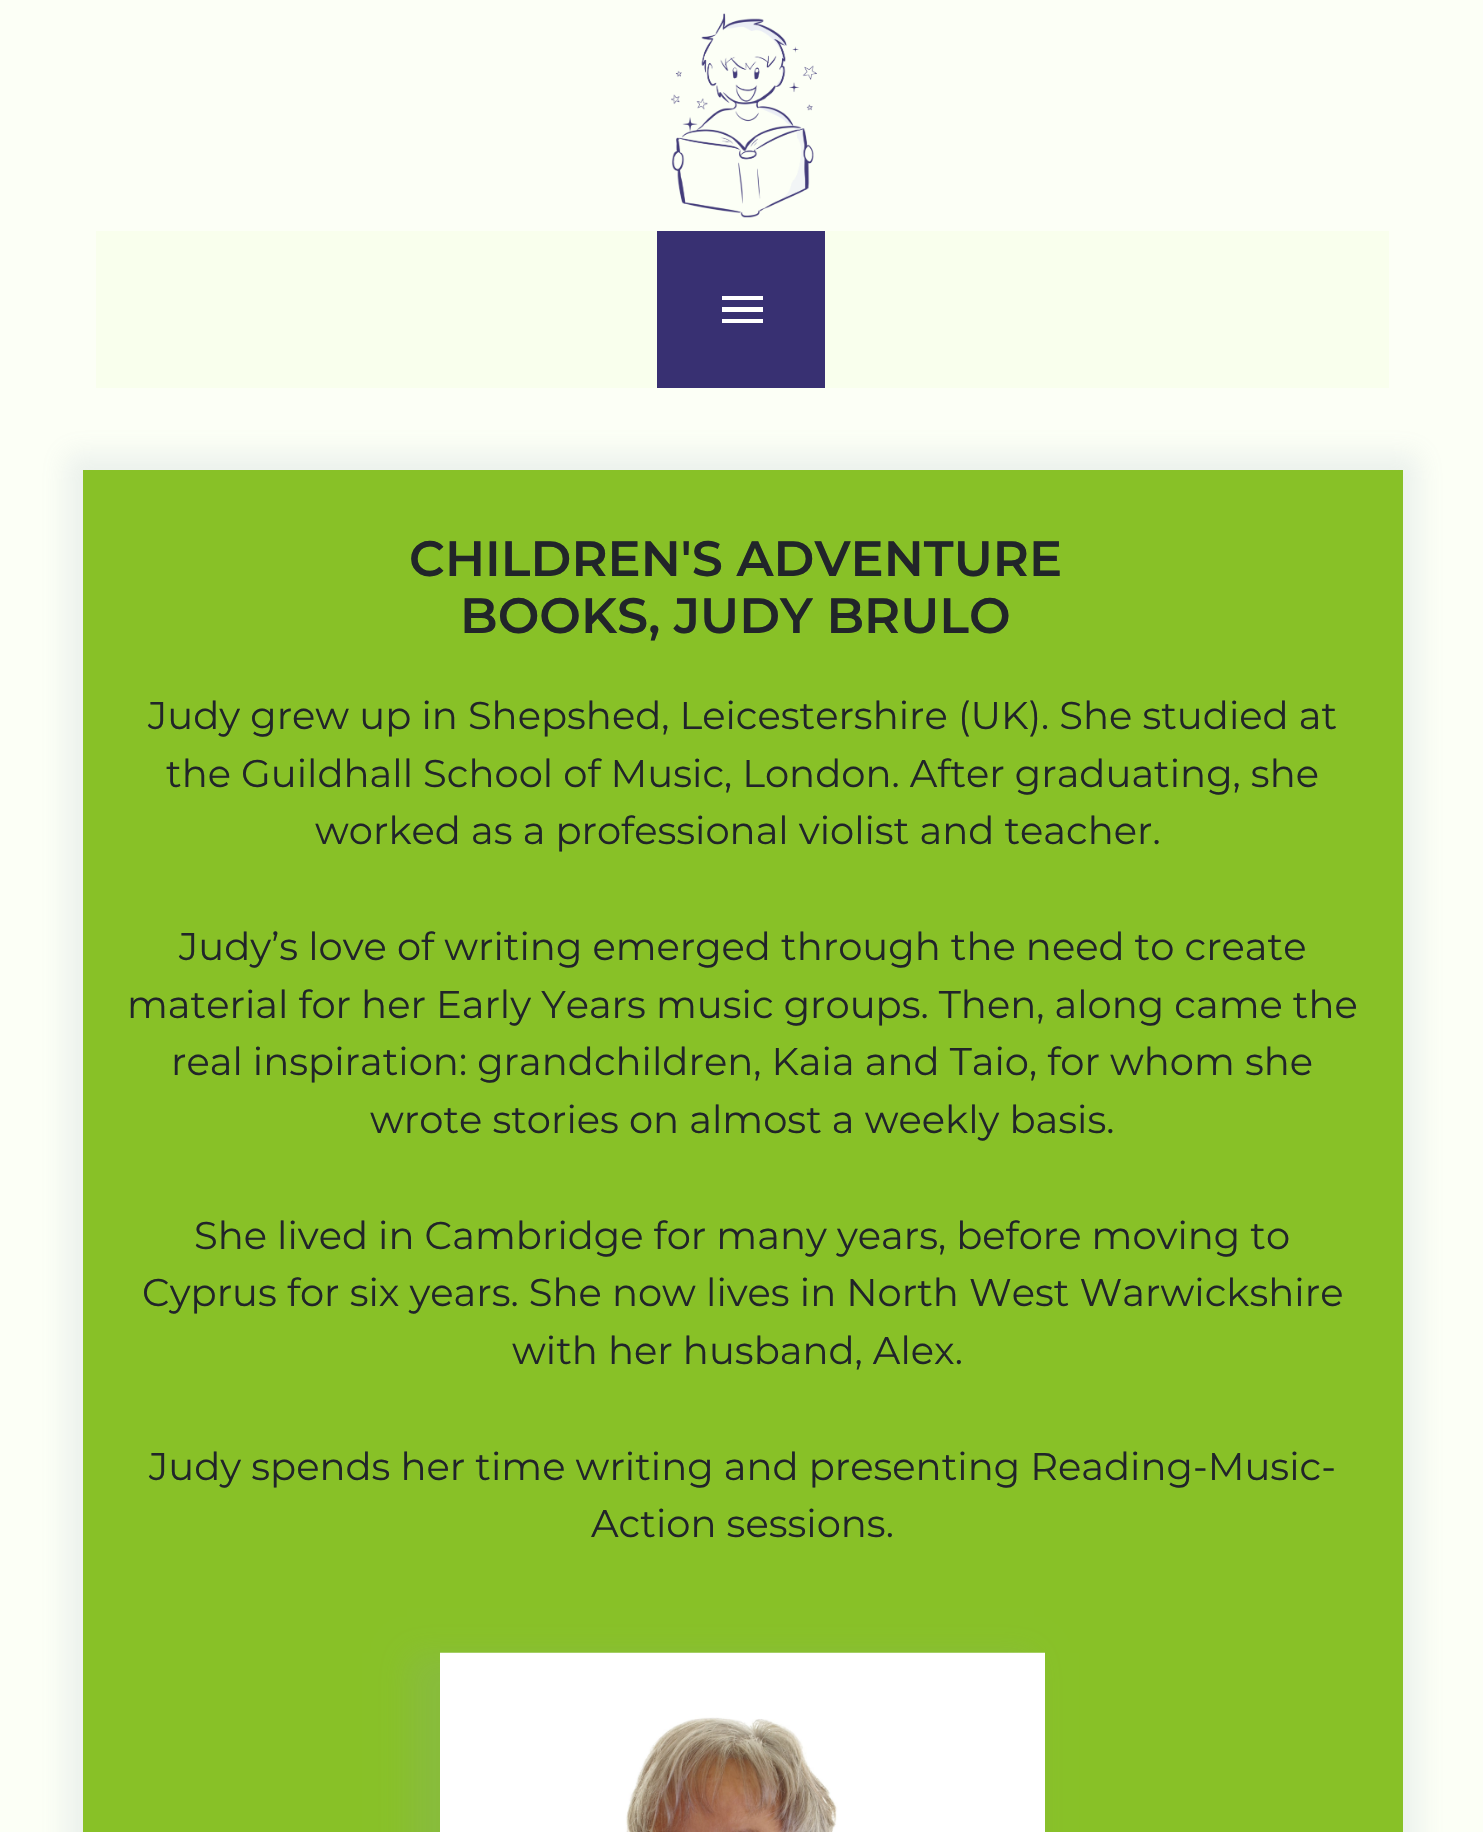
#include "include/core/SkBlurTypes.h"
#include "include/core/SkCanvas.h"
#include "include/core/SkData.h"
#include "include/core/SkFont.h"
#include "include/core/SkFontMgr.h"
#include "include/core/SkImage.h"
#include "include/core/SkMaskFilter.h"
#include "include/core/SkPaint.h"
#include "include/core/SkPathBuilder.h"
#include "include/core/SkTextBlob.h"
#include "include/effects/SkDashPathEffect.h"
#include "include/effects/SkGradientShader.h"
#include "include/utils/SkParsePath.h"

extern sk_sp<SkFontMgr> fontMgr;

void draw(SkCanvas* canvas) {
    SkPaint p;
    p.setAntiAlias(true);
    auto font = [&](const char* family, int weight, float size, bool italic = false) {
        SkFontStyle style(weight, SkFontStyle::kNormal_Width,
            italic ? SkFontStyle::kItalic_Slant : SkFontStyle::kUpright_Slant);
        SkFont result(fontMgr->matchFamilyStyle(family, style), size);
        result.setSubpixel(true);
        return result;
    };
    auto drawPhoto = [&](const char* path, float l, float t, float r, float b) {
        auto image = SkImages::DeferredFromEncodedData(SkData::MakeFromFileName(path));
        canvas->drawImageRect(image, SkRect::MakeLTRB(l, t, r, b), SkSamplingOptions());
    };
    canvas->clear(0xFFFCFFF6);
    drawPhoto("media/1.png", 671, 13, 817, 218);
    p.setColor(0xFFF9FFED);
    canvas->drawRect(SkRect::MakeLTRB(96, 231, 1389, 388), p);
    p.setColor(0xFF383072);
    canvas->drawRect(SkRect::MakeLTRB(657, 231, 825, 388), p);
    p.setColor(0xFFFFFFFF);
    canvas->drawPath(SkPathBuilder().moveTo(722, 296).lineTo(763, 296).lineTo(763, 300).lineTo(722, 300).close().moveTo(722, 307).lineTo(763, 307).lineTo(763, 312).lineTo(722, 312).close().moveTo(722, 319).lineTo(763, 319).lineTo(763, 323).lineTo(722, 323).close().detach(), p);
    p.setColor(0x24859BAE);
    p.setMaskFilter(SkMaskFilter::MakeBlur(kNormal_SkBlurStyle, 12.5f));
    canvas->drawRect(SkRect::MakeLTRB(66, 454, 1419, 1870), p);
    p.setMaskFilter(nullptr);
    p.setColor(0xFF88C127);
    canvas->drawRect(SkRect::MakeLTRB(83, 470, 1403, 1832), p);
    auto font1 = font("Montserrat", 600, 49.5f);
    p.setColor(0xFF212529);
    canvas->drawString("CHILDREN'S ADVENTURE", 409, 576, font1, p);
    canvas->drawString("BOOKS, JUDY BRULO", 460, 633, font1, p);
    auto font2 = font("Montserrat", 400, 38.5f);
    {
        const struct { const char* s; float x, y; } items[] = {
            {"Judy grew up in Shepshed, Leicestershire (UK). She studied at", 148, 729},
            {"the Guildhall School of Music, London. After graduating, she", 166, 787},
            {"worked as a professional violist and teacher.", 315, 844},
            {"Judy’s love of writing emerged through the need to create", 179, 960},
            {"material for her Early Years music groups. Then, along came the", 127, 1018},
            {"real inspiration: grandchildren, Kaia and Taio, for whom she", 171, 1075},
            {"wrote stories on almost a weekly basis.", 370, 1133},
            {"She lived in Cambridge for many years, before moving to", 194, 1249},
            {"Cyprus for six years. She now lives in North West Warwickshire", 142, 1306},
            {"with her husband, Alex.", 512, 1364},
            {"Judy spends her time writing and presenting Reading-Music-", 149, 1480},
            {"Action sessions.", 591, 1537},
        };
        for (auto [s, x, y] : items) {
            canvas->drawString(s, x, y, font2, p);
        }
    }
    p.setColor(0x24859BAE);
    p.setMaskFilter(SkMaskFilter::MakeBlur(kNormal_SkBlurStyle, 15));
    canvas->drawRect(SkRect::MakeLTRB(407, 1653, 1034, 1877), p);
    p.setMaskFilter(nullptr);
    drawPhoto("media/2.png", 440, 1652, 1045, 1832);
}
